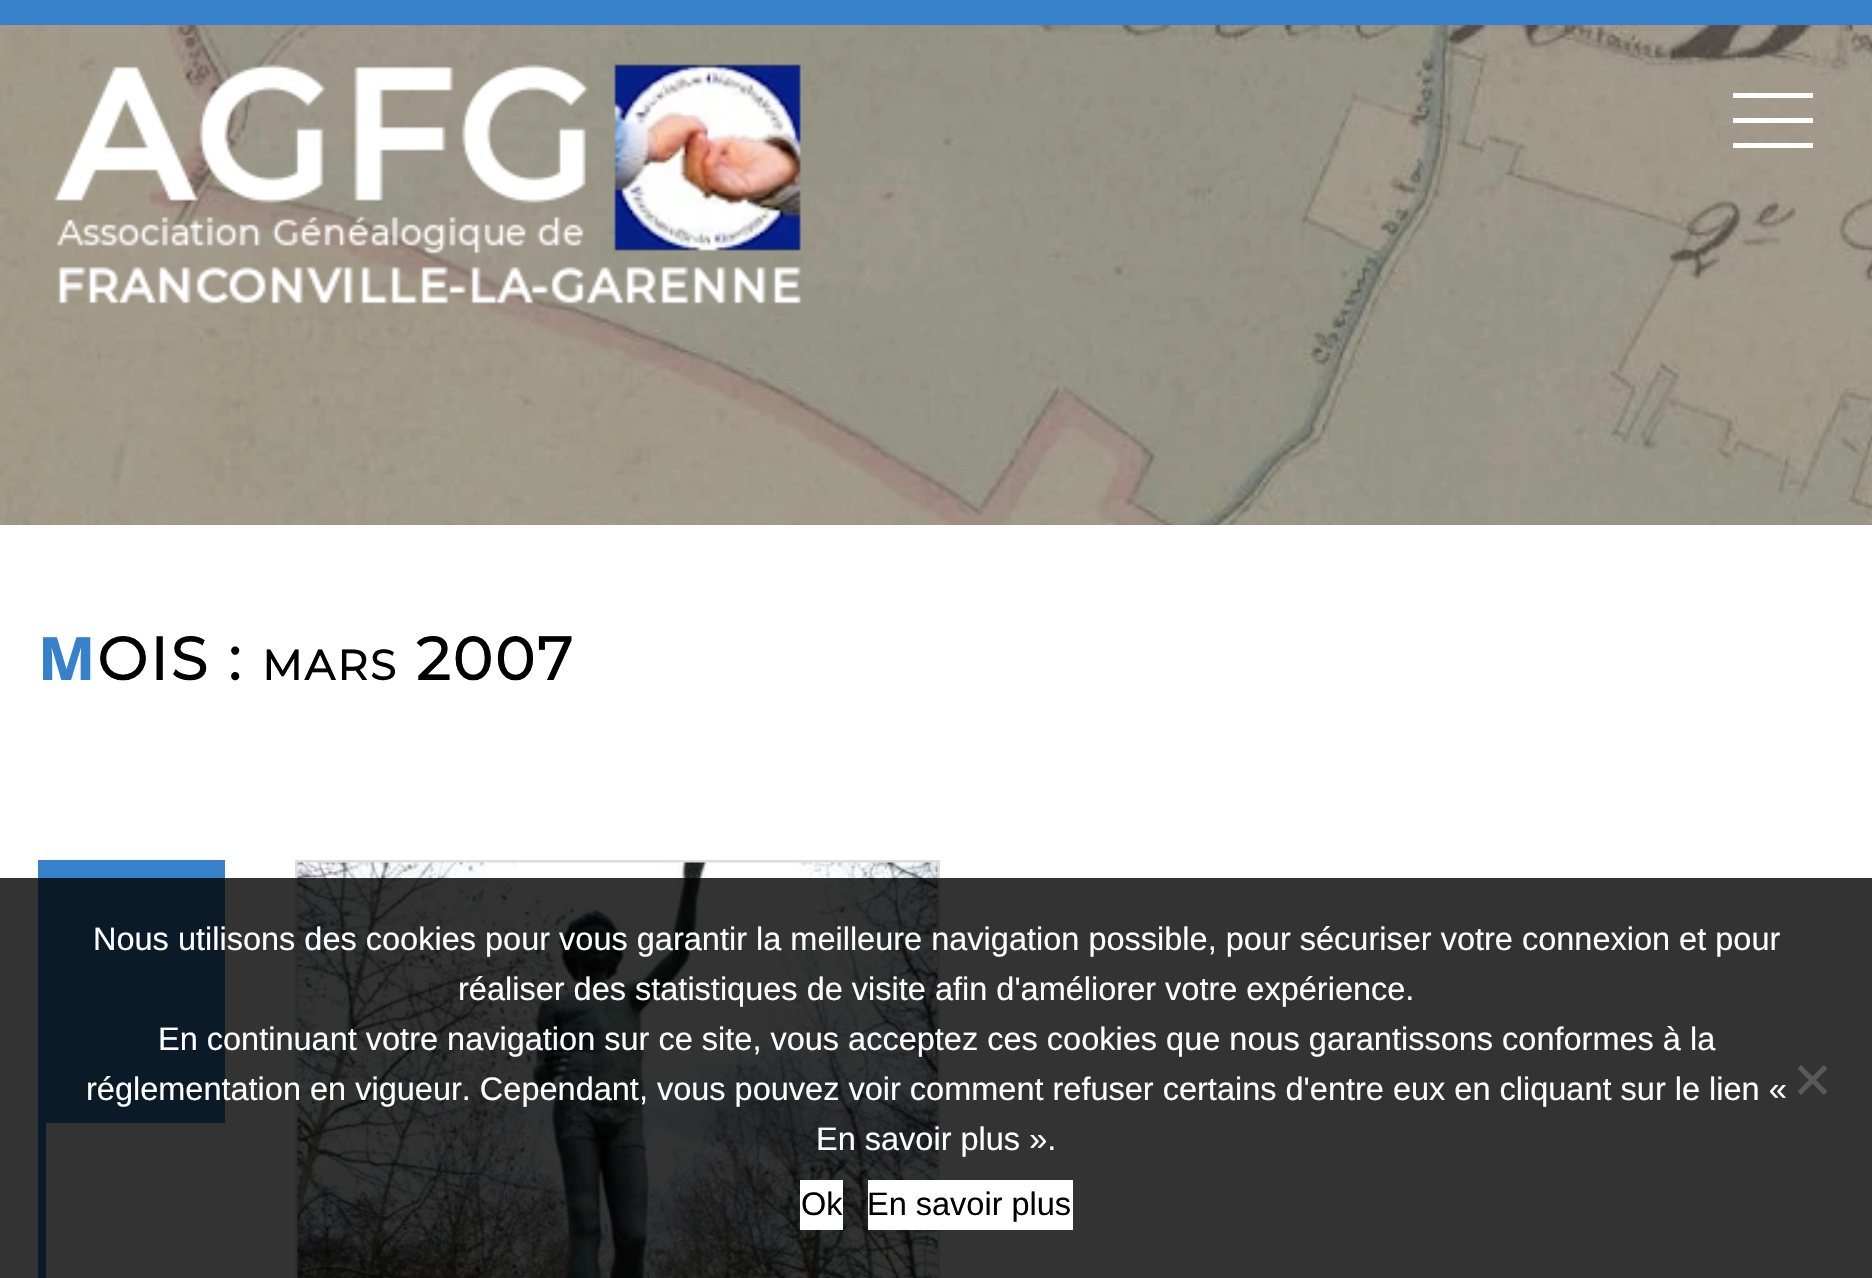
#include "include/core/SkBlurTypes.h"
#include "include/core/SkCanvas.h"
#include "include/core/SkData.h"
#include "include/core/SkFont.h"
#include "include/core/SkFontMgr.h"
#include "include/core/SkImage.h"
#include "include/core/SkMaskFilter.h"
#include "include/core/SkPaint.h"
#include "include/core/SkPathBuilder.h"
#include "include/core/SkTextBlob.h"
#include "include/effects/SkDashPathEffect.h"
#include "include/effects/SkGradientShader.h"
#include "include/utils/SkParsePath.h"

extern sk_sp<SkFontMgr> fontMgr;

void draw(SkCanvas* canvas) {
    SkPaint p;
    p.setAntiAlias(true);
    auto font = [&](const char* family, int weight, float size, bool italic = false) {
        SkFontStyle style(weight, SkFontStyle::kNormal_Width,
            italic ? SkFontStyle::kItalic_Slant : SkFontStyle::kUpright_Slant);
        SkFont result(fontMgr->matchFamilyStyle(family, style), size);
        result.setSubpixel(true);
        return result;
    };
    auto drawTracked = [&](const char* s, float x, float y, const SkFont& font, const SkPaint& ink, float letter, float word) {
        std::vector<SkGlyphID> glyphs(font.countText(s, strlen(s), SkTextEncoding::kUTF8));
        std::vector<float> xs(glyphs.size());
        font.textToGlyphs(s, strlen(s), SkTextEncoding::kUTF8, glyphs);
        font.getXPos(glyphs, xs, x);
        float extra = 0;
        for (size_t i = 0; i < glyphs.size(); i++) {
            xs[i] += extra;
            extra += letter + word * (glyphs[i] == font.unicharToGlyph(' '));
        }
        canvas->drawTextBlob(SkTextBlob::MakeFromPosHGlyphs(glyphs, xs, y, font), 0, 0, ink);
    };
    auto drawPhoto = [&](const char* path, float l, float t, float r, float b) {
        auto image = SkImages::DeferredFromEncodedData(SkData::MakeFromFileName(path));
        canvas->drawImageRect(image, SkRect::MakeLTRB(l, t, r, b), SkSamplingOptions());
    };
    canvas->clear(0xFFFFFFFF);
    p.setColor(0xFF3781CB);
    canvas->drawRect(SkRect::MakeLTRB(0, 0, 1872, 25), p);
    drawPhoto("media/2.png", 0, 25, 1872, 525);
    drawPhoto("media/1.png", 54, 64, 801, 304);
    {
        const struct { float l, t, r, b; SkColor color; } items[] = {
            {1733, 93, 1813, 98, 0xFFFFFFFF},
            {1733, 143, 1813, 148, 0xFFFFFFFF},
            {1733, 118, 1813, 123, 0xFFFFFFFF},
        };
        for (auto [l, t, r, b, color] : items) {
            p.setColor(color);
            canvas->drawRect(SkRect::MakeLTRB(l, t, r, b), p);
        }
    }
    auto font1 = font("Noto Sans", 800, 60);
    p.setColor(0xFF3781CB);
    drawTracked("M", 38, 680, font1, p, 2.5f, 0);
    auto font2 = font("Montserrat", 700, 60);
    p.setColor(0xFF000000);
    drawTracked("OIS :", 97, 680, font2, p, 2.5f, 0);
    auto font3 = font("Montserrat", 700, 42);
    drawTracked("MARS", 262, 680, font3, p, 2.5f, 0);
    drawTracked("2007", 416, 680, font2, p, 2.5f, 0);
    p.setColor(0xFF3781CB);
    canvas->drawRect(SkRect::MakeLTRB(38, 1123, 46, 1278), p);
    p.setStyle(SkPaint::kStroke_Style);
    p.setStrokeWidth(3);
    p.setColor(0xFFDDDDDD);
    canvas->drawRect(SkRect::MakeLTRB(296.5f, 861.5f, 938.5f, 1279.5f), p);
    drawPhoto("media/3.png", 297, 862, 938, 1278);
    p.setStyle(SkPaint::kFill_Style);
    p.setColor(0xFF3781CB);
    canvas->drawRect(SkRect::MakeLTRB(38, 860, 225, 1123), p);
    p.setColor(0xCC000000);
    canvas->drawRect(SkRect::MakeLTRB(0, 878, 1872, 1278), p);
    auto font4 = font("Liberation Sans", 400, 32.5f);
    p.setColor(0xFFFFFFFF);
    {
        const struct { const char* s; float x, y; } items[] = {
            {"Nous utilisons des cookies pour vous garantir la meilleure navigation possible, pour sécuriser votre connexion et pour", 93, 950},
            {"réaliser des statistiques de visite afin d'améliorer votre expérience.", 458, 1000},
            {"En continuant votre navigation sur ce site, vous acceptez ces cookies que nous garantissons conformes à la", 158, 1050},
            {"réglementation en vigueur. Cependant, vous pouvez voir comment refuser certains d'entre eux en cliquant sur le lien «", 86, 1100},
            {"En savoir plus ».", 816, 1150},
        };
        for (auto [s, x, y] : items) {
            canvas->drawString(s, x, y, font4, p);
        }
    }
    p.setColor(0xFF5A5A5A);
    canvas->drawPath(SkPathBuilder().moveTo(1824, 1065).lineTo(1827.5f, 1068.5f).lineTo(1801, 1095).lineTo(1797.5f, 1091.5f).close().detach(), p);
    canvas->drawPath(SkPathBuilder().moveTo(1797.5f, 1068.5f).lineTo(1801, 1065).lineTo(1827.5f, 1091.5f).lineTo(1824, 1095).close().detach(), p);
    p.setColor(0xFFFFFFFF);
    canvas->drawRect(SkRect::MakeLTRB(800, 1180, 843, 1230), p);
    p.setColor(0xFF000000);
    canvas->drawString("Ok", 801, 1215, font4, p);
    p.setColor(0xFFFFFFFF);
    canvas->drawRect(SkRect::MakeLTRB(868, 1180, 1073, 1230), p);
    p.setColor(0xFF000000);
    canvas->drawString("En savoir plus", 867, 1215, font4, p);
}
